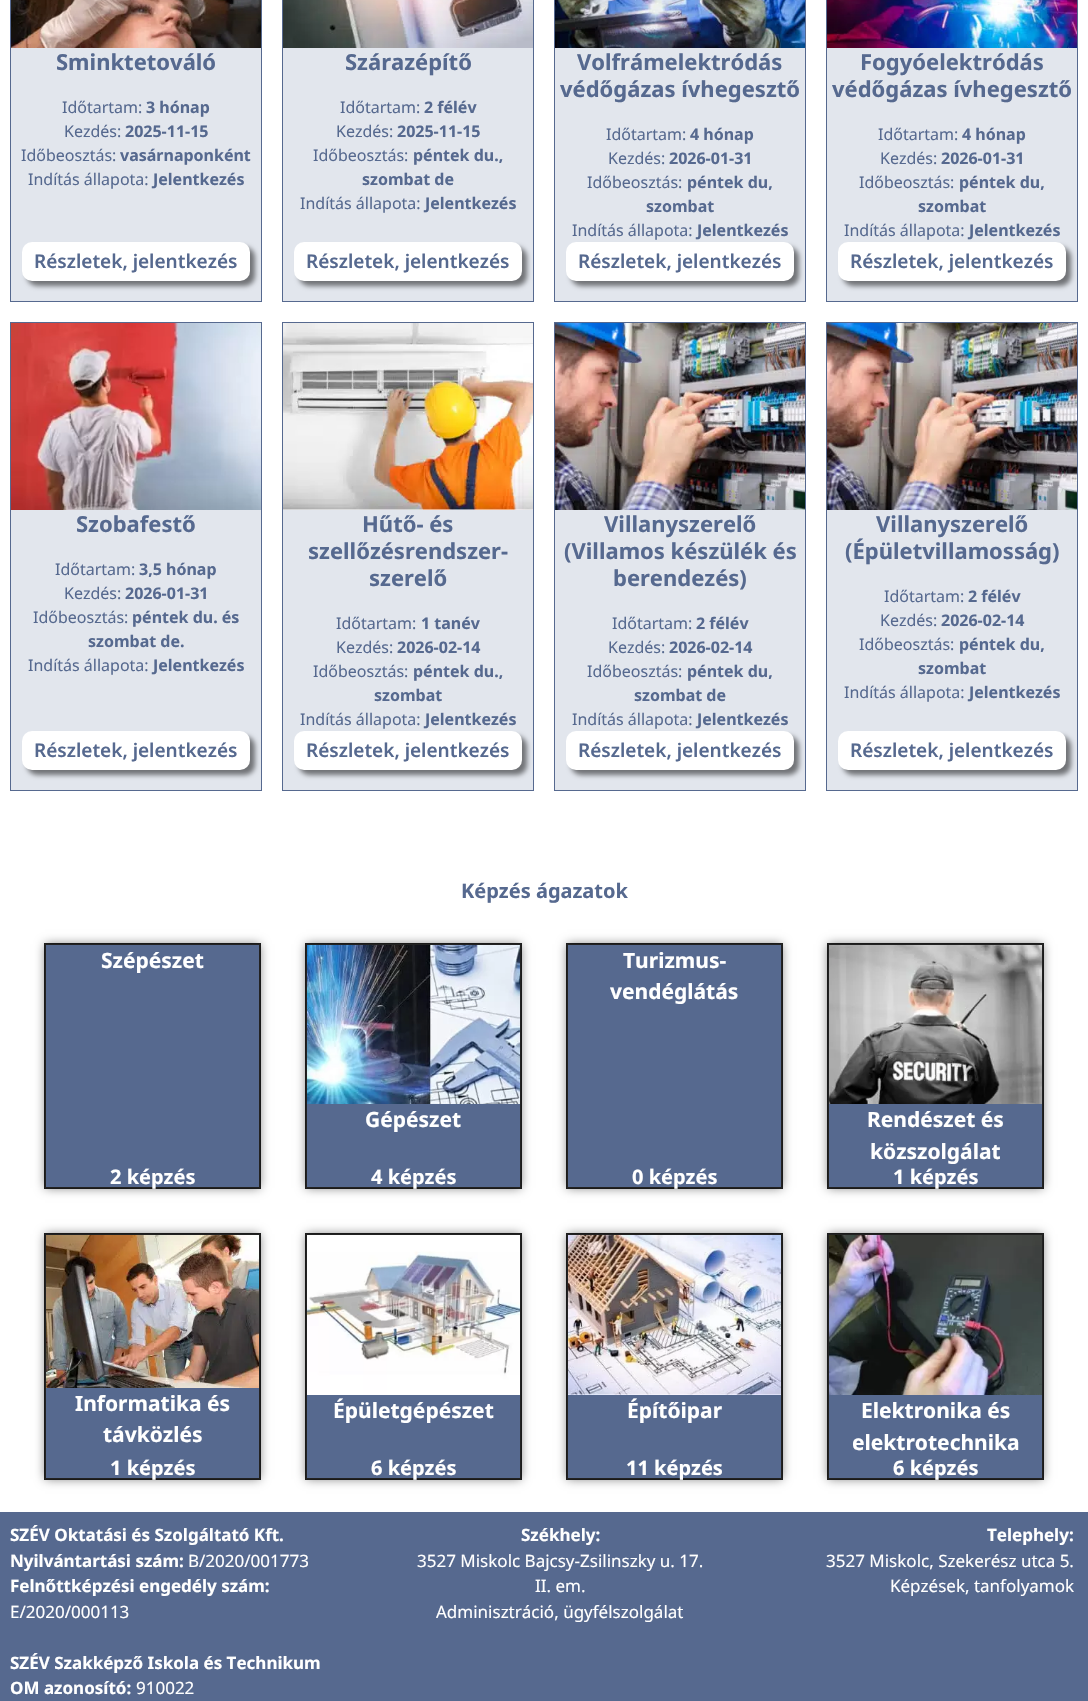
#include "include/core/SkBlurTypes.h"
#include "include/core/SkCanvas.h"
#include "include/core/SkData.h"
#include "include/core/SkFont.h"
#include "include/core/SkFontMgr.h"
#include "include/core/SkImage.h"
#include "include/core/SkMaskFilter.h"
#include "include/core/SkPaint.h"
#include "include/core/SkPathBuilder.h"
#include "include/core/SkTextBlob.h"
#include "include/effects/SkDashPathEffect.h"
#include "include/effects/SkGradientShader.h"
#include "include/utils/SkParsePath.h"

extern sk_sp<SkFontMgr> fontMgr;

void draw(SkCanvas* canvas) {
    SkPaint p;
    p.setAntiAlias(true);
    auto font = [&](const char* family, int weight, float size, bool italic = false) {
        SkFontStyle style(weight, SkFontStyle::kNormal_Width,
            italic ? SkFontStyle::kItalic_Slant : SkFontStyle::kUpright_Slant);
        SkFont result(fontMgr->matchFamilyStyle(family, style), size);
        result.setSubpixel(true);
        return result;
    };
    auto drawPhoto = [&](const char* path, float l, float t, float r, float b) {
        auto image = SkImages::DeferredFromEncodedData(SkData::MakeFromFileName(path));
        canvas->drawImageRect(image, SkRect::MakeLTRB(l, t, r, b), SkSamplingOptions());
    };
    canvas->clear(0xFFFFFFFF);
    p.setColor(0xFFE2E6ED);
    canvas->drawRect(SkRect::MakeLTRB(11, 48, 261, 301), p);
    p.setStyle(SkPaint::kStroke_Style);
    p.setStrokeWidth(1);
    p.setColor(0xFF56698F);
    canvas->drawRect(SkRect::MakeLTRB(10.5f, -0.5f, 261.5f, 301.5f), p);
    drawPhoto("media/1.png", 11, 0, 261, 48);
    auto font1 = font("Noto Sans", 700, 22);
    p.setStyle(SkPaint::kFill_Style);
    canvas->drawString("Sminktetováló", 56, 70, font1, p);
    auto font2 = font("Noto Sans", 400, 16);
    canvas->drawString("Időtartam:", 62, 113, font2, p);
    auto font3 = font("Noto Sans", 700, 16);
    canvas->drawString("3 hónap", 146, 113, font3, p);
    canvas->drawString("Kezdés:", 64, 137, font2, p);
    canvas->drawString("2025-11-15", 125, 137, font3, p);
    canvas->drawString("Időbeosztás:", 21, 161, font2, p);
    canvas->drawString("vasárnaponként", 120, 161, font3, p);
    canvas->drawString("Indítás állapota:", 28, 185, font2, p);
    canvas->drawString("Jelentkezés", 153, 185, font3, p);
    p.setColor(0x80000000);
    p.setMaskFilter(SkMaskFilter::MakeBlur(kNormal_SkBlurStyle, 2.5f));
    canvas->drawRoundRect(SkRect::MakeLTRB(27, 247, 255, 286), 10, 10, p);
    p.setMaskFilter(nullptr);
    p.setColor(0xFFFFFFFF);
    canvas->drawRoundRect(SkRect::MakeLTRB(22, 242, 250, 281), 10, 10, p);
    auto font4 = font("Noto Sans", 600, 19);
    p.setColor(0xFF56698F);
    canvas->drawString("Részletek, jelentkezés", 34, 268, font4, p);
    p.setColor(0xFFE2E6ED);
    canvas->drawRect(SkRect::MakeLTRB(283, 48, 533, 301), p);
    p.setStyle(SkPaint::kStroke_Style);
    p.setColor(0xFF56698F);
    canvas->drawRect(SkRect::MakeLTRB(282.5f, -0.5f, 533.5f, 301.5f), p);
    drawPhoto("media/2.png", 283, 0, 533, 48);
    p.setStyle(SkPaint::kFill_Style);
    canvas->drawString("Szárazépítő", 345, 70, font1, p);
    canvas->drawString("Időtartam:", 340, 113, font2, p);
    canvas->drawString("2 félév", 424, 113, font3, p);
    canvas->drawString("Kezdés:", 336, 137, font2, p);
    canvas->drawString("2025-11-15", 397, 137, font3, p);
    canvas->drawString("Időbeosztás:", 313, 161, font2, p);
    canvas->drawString("péntek du.,", 413, 161, font3, p);
    canvas->drawString("szombat de", 362, 185, font3, p);
    canvas->drawString("Indítás állapota:", 300, 209, font2, p);
    canvas->drawString("Jelentkezés", 425, 209, font3, p);
    p.setColor(0x80000000);
    p.setMaskFilter(SkMaskFilter::MakeBlur(kNormal_SkBlurStyle, 2.5f));
    canvas->drawRoundRect(SkRect::MakeLTRB(299, 247, 527, 286), 10, 10, p);
    p.setMaskFilter(nullptr);
    p.setColor(0xFFFFFFFF);
    canvas->drawRoundRect(SkRect::MakeLTRB(294, 242, 522, 281), 10, 10, p);
    p.setColor(0xFF56698F);
    canvas->drawString("Részletek, jelentkezés", 306, 268, font4, p);
    p.setColor(0xFFE2E6ED);
    canvas->drawRect(SkRect::MakeLTRB(555, 48, 805, 301), p);
    p.setStyle(SkPaint::kStroke_Style);
    p.setColor(0xFF56698F);
    canvas->drawRect(SkRect::MakeLTRB(554.5f, -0.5f, 805.5f, 301.5f), p);
    drawPhoto("media/3.png", 555, 0, 805, 48);
    p.setStyle(SkPaint::kFill_Style);
    canvas->drawString("Volfrámelektródás", 577, 70, font1, p);
    canvas->drawString("védőgázas ívhegesztő", 560, 97, font1, p);
    canvas->drawString("Időtartam:", 606, 140, font2, p);
    canvas->drawString("4 hónap", 690, 140, font3, p);
    canvas->drawString("Kezdés:", 608, 164, font2, p);
    canvas->drawString("2026-01-31", 669, 164, font3, p);
    canvas->drawString("Időbeosztás:", 587, 188, font2, p);
    canvas->drawString("péntek du,", 687, 188, font3, p);
    canvas->drawString("szombat", 646, 212, font3, p);
    canvas->drawString("Indítás állapota:", 572, 236, font2, p);
    canvas->drawString("Jelentkezés", 697, 236, font3, p);
    p.setColor(0x80000000);
    p.setMaskFilter(SkMaskFilter::MakeBlur(kNormal_SkBlurStyle, 2.5f));
    canvas->drawRoundRect(SkRect::MakeLTRB(571, 247, 799, 286), 10, 10, p);
    p.setMaskFilter(nullptr);
    p.setColor(0xFFFFFFFF);
    canvas->drawRoundRect(SkRect::MakeLTRB(566, 242, 794, 281), 10, 10, p);
    p.setColor(0xFF56698F);
    canvas->drawString("Részletek, jelentkezés", 578, 268, font4, p);
    p.setColor(0xFFE2E6ED);
    canvas->drawRect(SkRect::MakeLTRB(827, 48, 1077, 301), p);
    p.setStyle(SkPaint::kStroke_Style);
    p.setColor(0xFF56698F);
    canvas->drawRect(SkRect::MakeLTRB(826.5f, -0.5f, 1077.5f, 301.5f), p);
    drawPhoto("media/4.png", 827, 0, 1077, 48);
    p.setStyle(SkPaint::kFill_Style);
    canvas->drawString("Fogyóelektródás", 860, 70, font1, p);
    canvas->drawString("védőgázas ívhegesztő", 832, 97, font1, p);
    canvas->drawString("Időtartam:", 878, 140, font2, p);
    canvas->drawString("4 hónap", 962, 140, font3, p);
    canvas->drawString("Kezdés:", 880, 164, font2, p);
    canvas->drawString("2026-01-31", 941, 164, font3, p);
    canvas->drawString("Időbeosztás:", 859, 188, font2, p);
    canvas->drawString("péntek du,", 959, 188, font3, p);
    canvas->drawString("szombat", 918, 212, font3, p);
    canvas->drawString("Indítás állapota:", 844, 236, font2, p);
    canvas->drawString("Jelentkezés", 969, 236, font3, p);
    p.setColor(0x80000000);
    p.setMaskFilter(SkMaskFilter::MakeBlur(kNormal_SkBlurStyle, 2.5f));
    canvas->drawRoundRect(SkRect::MakeLTRB(843, 247, 1071, 286), 10, 10, p);
    p.setMaskFilter(nullptr);
    p.setColor(0xFFFFFFFF);
    canvas->drawRoundRect(SkRect::MakeLTRB(838, 242, 1066, 281), 10, 10, p);
    p.setColor(0xFF56698F);
    canvas->drawString("Részletek, jelentkezés", 850, 268, font4, p);
    p.setColor(0xFFE2E6ED);
    canvas->drawRect(SkRect::MakeLTRB(11, 510, 261, 790), p);
    p.setStyle(SkPaint::kStroke_Style);
    p.setColor(0xFF56698F);
    canvas->drawRect(SkRect::MakeLTRB(10.5f, 322.5f, 261.5f, 790.5f), p);
    drawPhoto("media/5.png", 11, 323, 261, 510);
    p.setStyle(SkPaint::kFill_Style);
    canvas->drawString("Szobafestő", 76, 532, font1, p);
    canvas->drawString("Időtartam:", 55, 575, font2, p);
    canvas->drawString("3,5 hónap", 139, 575, font3, p);
    canvas->drawString("Kezdés:", 64, 599, font2, p);
    canvas->drawString("2026-01-31", 125, 599, font3, p);
    canvas->drawString("Időbeosztás:", 33, 623, font2, p);
    canvas->drawString("péntek du. és", 132, 623, font3, p);
    canvas->drawString("szombat de.", 88, 647, font3, p);
    canvas->drawString("Indítás állapota:", 28, 671, font2, p);
    canvas->drawString("Jelentkezés", 153, 671, font3, p);
    p.setColor(0x80000000);
    p.setMaskFilter(SkMaskFilter::MakeBlur(kNormal_SkBlurStyle, 2.5f));
    canvas->drawRoundRect(SkRect::MakeLTRB(27, 736, 255, 775), 10, 10, p);
    p.setMaskFilter(nullptr);
    p.setColor(0xFFFFFFFF);
    canvas->drawRoundRect(SkRect::MakeLTRB(22, 731, 250, 770), 10, 10, p);
    p.setColor(0xFF56698F);
    canvas->drawString("Részletek, jelentkezés", 34, 757, font4, p);
    p.setColor(0xFFE2E6ED);
    canvas->drawRect(SkRect::MakeLTRB(283, 510, 533, 790), p);
    p.setStyle(SkPaint::kStroke_Style);
    p.setColor(0xFF56698F);
    canvas->drawRect(SkRect::MakeLTRB(282.5f, 322.5f, 533.5f, 790.5f), p);
    drawPhoto("media/6.png", 283, 323, 533, 510);
    p.setStyle(SkPaint::kFill_Style);
    {
        const struct { const char* s; float x, y; } items[] = {
            {"Hűtő- és", 362, 532},
            {"szellőzésrendszer-", 308, 559},
            {"szerelő", 369, 586},
        };
        for (auto [s, x, y] : items) {
            canvas->drawString(s, x, y, font1, p);
        }
    }
    canvas->drawString("Időtartam:", 336, 629, font2, p);
    canvas->drawString("1 tanév", 421, 629, font3, p);
    canvas->drawString("Kezdés:", 336, 653, font2, p);
    canvas->drawString("2026-02-14", 397, 653, font3, p);
    canvas->drawString("Időbeosztás:", 313, 677, font2, p);
    canvas->drawString("péntek du.,", 413, 677, font3, p);
    canvas->drawString("szombat", 374, 701, font3, p);
    canvas->drawString("Indítás állapota:", 300, 725, font2, p);
    canvas->drawString("Jelentkezés", 425, 725, font3, p);
    p.setColor(0x80000000);
    p.setMaskFilter(SkMaskFilter::MakeBlur(kNormal_SkBlurStyle, 2.5f));
    canvas->drawRoundRect(SkRect::MakeLTRB(299, 736, 527, 775), 10, 10, p);
    p.setMaskFilter(nullptr);
    p.setColor(0xFFFFFFFF);
    canvas->drawRoundRect(SkRect::MakeLTRB(294, 731, 522, 770), 10, 10, p);
    p.setColor(0xFF56698F);
    canvas->drawString("Részletek, jelentkezés", 306, 757, font4, p);
    p.setColor(0xFFE2E6ED);
    canvas->drawRect(SkRect::MakeLTRB(555, 510, 805, 790), p);
    p.setStyle(SkPaint::kStroke_Style);
    p.setColor(0xFF56698F);
    canvas->drawRect(SkRect::MakeLTRB(554.5f, 322.5f, 805.5f, 790.5f), p);
    drawPhoto("media/7.png", 555, 323, 805, 510);
    p.setStyle(SkPaint::kFill_Style);
    {
        const struct { const char* s; float x, y; } items[] = {
            {"Villanyszerelő", 604, 532},
            {"(Villamos készülék és", 564, 559},
            {"berendezés)", 613, 586},
        };
        for (auto [s, x, y] : items) {
            canvas->drawString(s, x, y, font1, p);
        }
    }
    canvas->drawString("Időtartam:", 612, 629, font2, p);
    canvas->drawString("2 félév", 696, 629, font3, p);
    canvas->drawString("Kezdés:", 608, 653, font2, p);
    canvas->drawString("2026-02-14", 669, 653, font3, p);
    canvas->drawString("Időbeosztás:", 587, 677, font2, p);
    canvas->drawString("péntek du,", 687, 677, font3, p);
    canvas->drawString("szombat de", 634, 701, font3, p);
    canvas->drawString("Indítás állapota:", 572, 725, font2, p);
    canvas->drawString("Jelentkezés", 697, 725, font3, p);
    p.setColor(0x80000000);
    p.setMaskFilter(SkMaskFilter::MakeBlur(kNormal_SkBlurStyle, 2.5f));
    canvas->drawRoundRect(SkRect::MakeLTRB(571, 736, 799, 775), 10, 10, p);
    p.setMaskFilter(nullptr);
    p.setColor(0xFFFFFFFF);
    canvas->drawRoundRect(SkRect::MakeLTRB(566, 731, 794, 770), 10, 10, p);
    p.setColor(0xFF56698F);
    canvas->drawString("Részletek, jelentkezés", 578, 757, font4, p);
    p.setColor(0xFFE2E6ED);
    canvas->drawRect(SkRect::MakeLTRB(827, 510, 1077, 790), p);
    p.setStyle(SkPaint::kStroke_Style);
    p.setColor(0xFF56698F);
    canvas->drawRect(SkRect::MakeLTRB(826.5f, 322.5f, 1077.5f, 790.5f), p);
    drawPhoto("media/7.png", 827, 323, 1077, 510);
    p.setStyle(SkPaint::kFill_Style);
    canvas->drawString("Villanyszerelő", 876, 532, font1, p);
    canvas->drawString("(Épületvillamosság)", 845, 559, font1, p);
    canvas->drawString("Időtartam:", 884, 602, font2, p);
    canvas->drawString("2 félév", 968, 602, font3, p);
    canvas->drawString("Kezdés:", 880, 626, font2, p);
    canvas->drawString("2026-02-14", 941, 626, font3, p);
    canvas->drawString("Időbeosztás:", 859, 650, font2, p);
    canvas->drawString("péntek du,", 959, 650, font3, p);
    canvas->drawString("szombat", 918, 674, font3, p);
    canvas->drawString("Indítás állapota:", 844, 698, font2, p);
    canvas->drawString("Jelentkezés", 969, 698, font3, p);
    p.setColor(0x80000000);
    p.setMaskFilter(SkMaskFilter::MakeBlur(kNormal_SkBlurStyle, 2.5f));
    canvas->drawRoundRect(SkRect::MakeLTRB(843, 736, 1071, 775), 10, 10, p);
    p.setMaskFilter(nullptr);
    p.setColor(0xFFFFFFFF);
    canvas->drawRoundRect(SkRect::MakeLTRB(838, 731, 1066, 770), 10, 10, p);
    p.setColor(0xFF56698F);
    canvas->drawString("Részletek, jelentkezés", 850, 757, font4, p);
    auto font5 = font("Noto Sans", 700, 20);
    canvas->drawString("Képzés ágazatok", 461, 898, font5, p);
    p.setStyle(SkPaint::kStroke_Style);
    p.setColor(0xFF222222);
    canvas->drawRect(SkRect::MakeLTRB(44.5f, 943.5f, 260.5f, 1188.5f), p);
    p.setStyle(SkPaint::kFill_Style);
    p.setColor(0x80000000);
    p.setMaskFilter(SkMaskFilter::MakeBlur(kNormal_SkBlurStyle, 5));
    canvas->drawRect(SkRect::MakeLTRB(45, 944, 260, 1188), p);
    p.setMaskFilter(nullptr);
    p.setColor(0xFF56698F);
    canvas->drawRect(SkRect::MakeLTRB(45.5f, 944.5f, 259.5f, 1187.5f), p);
    p.setStyle(SkPaint::kStroke_Style);
    p.setColor(0xFF222222);
    canvas->drawRect(SkRect::MakeLTRB(45.5f, 944.5f, 259.5f, 1187.5f), p);
    auto font6 = font("Noto Sans", 700, 21);
    p.setStyle(SkPaint::kFill_Style);
    p.setColor(0xFFFFFFFF);
    canvas->drawString("Szépészet", 101, 968, font6, p);
    canvas->drawString("2 képzés", 110, 1184, font5, p);
    p.setStyle(SkPaint::kStroke_Style);
    p.setColor(0xFF222222);
    canvas->drawRect(SkRect::MakeLTRB(305.5f, 943.5f, 521.5f, 1188.5f), p);
    p.setStyle(SkPaint::kFill_Style);
    p.setColor(0x80000000);
    p.setMaskFilter(SkMaskFilter::MakeBlur(kNormal_SkBlurStyle, 5));
    canvas->drawRect(SkRect::MakeLTRB(306, 944, 521, 1188), p);
    p.setMaskFilter(nullptr);
    p.setColor(0xFF56698F);
    canvas->drawRect(SkRect::MakeLTRB(307, 1104, 520, 1187), p);
    p.setStyle(SkPaint::kStroke_Style);
    p.setColor(0xFF222222);
    canvas->drawRect(SkRect::MakeLTRB(306.5f, 944.5f, 520.5f, 1187.5f), p);
    drawPhoto("media/8.png", 307, 945, 520, 1104);
    p.setStyle(SkPaint::kFill_Style);
    p.setColor(0xFFFFFFFF);
    canvas->drawString("Gépészet", 365, 1127, font6, p);
    canvas->drawString("4 képzés", 371, 1184, font5, p);
    p.setStyle(SkPaint::kStroke_Style);
    p.setColor(0xFF222222);
    canvas->drawRect(SkRect::MakeLTRB(566.5f, 943.5f, 782.5f, 1188.5f), p);
    p.setStyle(SkPaint::kFill_Style);
    p.setColor(0x80000000);
    p.setMaskFilter(SkMaskFilter::MakeBlur(kNormal_SkBlurStyle, 5));
    canvas->drawRect(SkRect::MakeLTRB(567, 944, 782, 1188), p);
    p.setMaskFilter(nullptr);
    p.setColor(0xFF56698F);
    canvas->drawRect(SkRect::MakeLTRB(567.5f, 944.5f, 781.5f, 1187.5f), p);
    p.setStyle(SkPaint::kStroke_Style);
    p.setColor(0xFF222222);
    canvas->drawRect(SkRect::MakeLTRB(567.5f, 944.5f, 781.5f, 1187.5f), p);
    p.setStyle(SkPaint::kFill_Style);
    p.setColor(0xFFFFFFFF);
    canvas->drawString("Turizmus-", 623, 968, font6, p);
    canvas->drawString("vendéglátás", 610, 999, font6, p);
    canvas->drawString("0 képzés", 632, 1184, font5, p);
    p.setStyle(SkPaint::kStroke_Style);
    p.setColor(0xFF222222);
    canvas->drawRect(SkRect::MakeLTRB(827.5f, 943.5f, 1043.5f, 1188.5f), p);
    p.setStyle(SkPaint::kFill_Style);
    p.setColor(0x80000000);
    p.setMaskFilter(SkMaskFilter::MakeBlur(kNormal_SkBlurStyle, 5));
    canvas->drawRect(SkRect::MakeLTRB(828, 944, 1043, 1188), p);
    p.setMaskFilter(nullptr);
    p.setColor(0xFF56698F);
    canvas->drawRect(SkRect::MakeLTRB(829, 1104, 1042, 1187), p);
    p.setStyle(SkPaint::kStroke_Style);
    p.setColor(0xFF222222);
    canvas->drawRect(SkRect::MakeLTRB(828.5f, 944.5f, 1042.5f, 1187.5f), p);
    drawPhoto("media/9.png", 829, 945, 1042, 1104);
    p.setStyle(SkPaint::kFill_Style);
    p.setColor(0xFFFFFFFF);
    canvas->drawString("Rendészet és", 867, 1127, font6, p);
    canvas->drawString("közszolgálat", 870, 1159, font6, p);
    canvas->drawString("1 képzés", 893, 1184, font5, p);
    p.setStyle(SkPaint::kStroke_Style);
    p.setColor(0xFF222222);
    canvas->drawRect(SkRect::MakeLTRB(44.5f, 1233.5f, 260.5f, 1479.5f), p);
    p.setStyle(SkPaint::kFill_Style);
    p.setColor(0x80000000);
    p.setMaskFilter(SkMaskFilter::MakeBlur(kNormal_SkBlurStyle, 5));
    canvas->drawRect(SkRect::MakeLTRB(45, 1234, 260, 1479), p);
    p.setMaskFilter(nullptr);
    p.setColor(0xFF56698F);
    canvas->drawRect(SkRect::MakeLTRB(46, 1388, 259, 1478), p);
    p.setStyle(SkPaint::kStroke_Style);
    p.setColor(0xFF222222);
    canvas->drawRect(SkRect::MakeLTRB(45.5f, 1234.5f, 259.5f, 1478.5f), p);
    drawPhoto("media/10.png", 46, 1235, 259, 1388);
    p.setStyle(SkPaint::kFill_Style);
    p.setColor(0xFFFFFFFF);
    canvas->drawString("Informatika és", 75, 1411, font6, p);
    canvas->drawString("távközlés", 103, 1442, font6, p);
    canvas->drawString("1 képzés", 110, 1475, font5, p);
    p.setStyle(SkPaint::kStroke_Style);
    p.setColor(0xFF222222);
    canvas->drawRect(SkRect::MakeLTRB(305.5f, 1233.5f, 521.5f, 1479.5f), p);
    p.setStyle(SkPaint::kFill_Style);
    p.setColor(0x80000000);
    p.setMaskFilter(SkMaskFilter::MakeBlur(kNormal_SkBlurStyle, 5));
    canvas->drawRect(SkRect::MakeLTRB(306, 1234, 521, 1479), p);
    p.setMaskFilter(nullptr);
    p.setColor(0xFF56698F);
    canvas->drawRect(SkRect::MakeLTRB(307, 1395, 520, 1478), p);
    p.setStyle(SkPaint::kStroke_Style);
    p.setColor(0xFF222222);
    canvas->drawRect(SkRect::MakeLTRB(306.5f, 1234.5f, 520.5f, 1478.5f), p);
    drawPhoto("media/11.png", 307, 1235, 520, 1395);
    p.setStyle(SkPaint::kFill_Style);
    p.setColor(0xFFFFFFFF);
    canvas->drawString("Épületgépészet", 333, 1418, font6, p);
    canvas->drawString("6 képzés", 371, 1475, font5, p);
    p.setStyle(SkPaint::kStroke_Style);
    p.setColor(0xFF222222);
    canvas->drawRect(SkRect::MakeLTRB(566.5f, 1233.5f, 782.5f, 1479.5f), p);
    p.setStyle(SkPaint::kFill_Style);
    p.setColor(0x80000000);
    p.setMaskFilter(SkMaskFilter::MakeBlur(kNormal_SkBlurStyle, 5));
    canvas->drawRect(SkRect::MakeLTRB(567, 1234, 782, 1479), p);
    p.setMaskFilter(nullptr);
    p.setColor(0xFF56698F);
    canvas->drawRect(SkRect::MakeLTRB(568, 1395, 781, 1478), p);
    p.setStyle(SkPaint::kStroke_Style);
    p.setColor(0xFF222222);
    canvas->drawRect(SkRect::MakeLTRB(567.5f, 1234.5f, 781.5f, 1478.5f), p);
    drawPhoto("media/12.png", 568, 1235, 781, 1395);
    p.setStyle(SkPaint::kFill_Style);
    p.setColor(0xFFFFFFFF);
    canvas->drawString("Építőipar", 627, 1418, font6, p);
    canvas->drawString("11 képzés", 626, 1475, font5, p);
    p.setStyle(SkPaint::kStroke_Style);
    p.setColor(0xFF222222);
    canvas->drawRect(SkRect::MakeLTRB(827.5f, 1233.5f, 1043.5f, 1479.5f), p);
    p.setStyle(SkPaint::kFill_Style);
    p.setColor(0x80000000);
    p.setMaskFilter(SkMaskFilter::MakeBlur(kNormal_SkBlurStyle, 5));
    canvas->drawRect(SkRect::MakeLTRB(828, 1234, 1043, 1479), p);
    p.setMaskFilter(nullptr);
    p.setColor(0xFF56698F);
    canvas->drawRect(SkRect::MakeLTRB(829, 1395, 1042, 1478), p);
    p.setStyle(SkPaint::kStroke_Style);
    p.setColor(0xFF222222);
    canvas->drawRect(SkRect::MakeLTRB(828.5f, 1234.5f, 1042.5f, 1478.5f), p);
    drawPhoto("media/13.png", 829, 1235, 1042, 1395);
    p.setStyle(SkPaint::kFill_Style);
    p.setColor(0xFFFFFFFF);
    canvas->drawString("Elektronika és", 861, 1418, font6, p);
    canvas->drawString("elektrotechnika", 852, 1450, font6, p);
    canvas->drawString("6 képzés", 893, 1475, font5, p);
    p.setColor(0xFF56698F);
    canvas->drawRect(SkRect::MakeLTRB(0, 1512, 1088, 1701), p);
    auto font7 = font("Noto Sans", 700, 17);
    p.setColor(0xFFFFFFFF);
    canvas->drawString("SZÉV Oktatási és Szolgáltató Kft.", 10, 1541, font7, p);
    canvas->drawString("Nyilvántartási szám:", 10, 1567, font7, p);
    auto font8 = font("Noto Sans", 400, 17);
    canvas->drawString("B/2020/001773", 188, 1567, font8, p);
    canvas->drawString("Felnőttképzési engedély szám:", 10, 1592, font7, p);
    canvas->drawString("E/2020/000113", 10, 1618, font8, p);
    canvas->drawString("SZÉV Szakképző Iskola és Technikum", 10, 1669, font7, p);
    canvas->drawString("OM azonosító:", 10, 1694, font7, p);
    canvas->drawString("910022", 136, 1694, font8, p);
    canvas->drawString("Székhely:", 521, 1541, font7, p);
    {
        const struct { const char* s; float x, y; } items[] = {
            {"3527 Miskolc Bajcsy-Zsilinszky u. 17.", 417, 1567},
            {"II. em.", 535, 1592},
            {"Adminisztráció, ügyfélszolgálat", 436, 1618},
        };
        for (auto [s, x, y] : items) {
            canvas->drawString(s, x, y, font8, p);
        }
    }
    canvas->drawString("Telephely:", 987, 1541, font7, p);
    canvas->drawString("3527 Miskolc, Szekerész utca 5.", 826, 1567, font8, p);
    canvas->drawString("Képzések, tanfolyamok", 890, 1592, font8, p);
}
